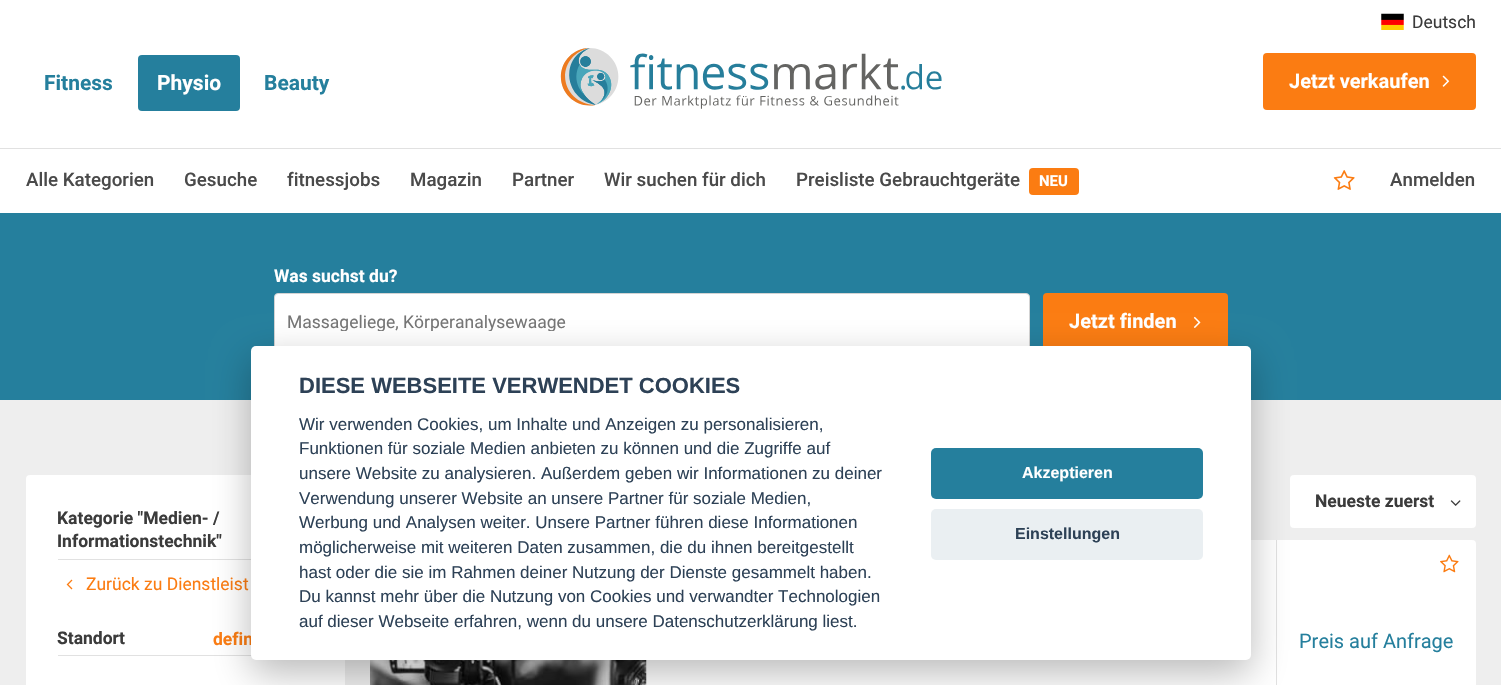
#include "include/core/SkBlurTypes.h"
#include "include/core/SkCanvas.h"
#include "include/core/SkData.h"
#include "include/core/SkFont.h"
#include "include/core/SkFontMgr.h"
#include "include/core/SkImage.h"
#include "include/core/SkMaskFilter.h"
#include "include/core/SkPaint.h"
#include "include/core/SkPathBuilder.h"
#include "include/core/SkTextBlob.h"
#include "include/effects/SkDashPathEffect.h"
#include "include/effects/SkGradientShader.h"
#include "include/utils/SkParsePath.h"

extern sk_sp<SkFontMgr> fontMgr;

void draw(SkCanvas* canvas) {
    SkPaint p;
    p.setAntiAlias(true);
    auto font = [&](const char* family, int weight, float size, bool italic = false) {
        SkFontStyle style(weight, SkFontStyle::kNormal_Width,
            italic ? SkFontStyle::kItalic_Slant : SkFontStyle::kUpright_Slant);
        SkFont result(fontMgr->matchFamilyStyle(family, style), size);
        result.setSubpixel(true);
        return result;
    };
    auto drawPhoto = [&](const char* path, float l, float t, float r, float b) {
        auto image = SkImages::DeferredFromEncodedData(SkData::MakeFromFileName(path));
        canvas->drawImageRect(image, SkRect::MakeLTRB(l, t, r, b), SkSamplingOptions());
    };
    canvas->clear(0xFFFFFFFF);
    drawPhoto("media/1.png", 1381, 13, 1404, 30);
    auto font1 = font("Roboto", 400, 17.5f);
    p.setColor(0xFF3B3B3B);
    canvas->drawString("Deutsch", 1412, 28, font1, p);
    auto font2 = font("Roboto", 500, 18.75f);
    p.setColor(0xFF4A4A4A);
    {
        const struct { const char* s; float x, y; } items[] = {
            {"Alle Kategorien", 26, 186},
            {"Gesuche", 184, 186},
            {"fitnessjobs", 287, 186},
            {"Magazin", 410, 186},
            {"Partner", 512, 186},
            {"Wir suchen für dich", 604, 186},
            {"Preisliste Gebrauchtgeräte", 796, 186},
        };
        for (auto [s, x, y] : items) {
            canvas->drawString(s, x, y, font2, p);
        }
    }
    p.setColor(0xFFFB7C12);
    canvas->drawRoundRect(SkRect::MakeLTRB(1029, 168, 1079, 195), 4, 4, p);
    auto font3 = font("Roboto", 700, 15);
    p.setColor(0xFFFFFFFF);
    canvas->drawString("NEU", 1039, 186, font3, p);
    drawPhoto("media/2.png", 1333, 170, 1355, 190);
    p.setColor(0xFF4A4A4A);
    canvas->drawString("Anmelden", 1390, 186, font2, p);
    p.setColor(0xFFE1E1E1);
    canvas->drawRect(SkRect::MakeLTRB(0, 148, 1501, 149), p);
    auto font4 = font("Roboto", 700, 21);
    p.setColor(0xFF257F9D);
    canvas->drawString("Fitness", 44, 90, font4, p);
    canvas->drawRoundRect(SkRect::MakeLTRB(138, 55, 240, 111), 4, 4, p);
    p.setColor(0xFFFFFFFF);
    canvas->drawString("Physio", 157, 90, font4, p);
    p.setColor(0xFF257F9D);
    canvas->drawString("Beauty", 264, 90, font4, p);
    p.setColor(0xFFFB7C12);
    canvas->drawRoundRect(SkRect::MakeLTRB(1263, 53, 1476, 110), 4, 4, p);
    auto font5 = font("Roboto", 700, 20);
    p.setColor(0xFFFFFFFF);
    canvas->drawString("Jetzt verkaufen", 1289, 88, font5, p);
    drawPhoto("media/3.png", 1442, 75, 1450, 87);
    drawPhoto("media/4.png", 560, 48, 942, 109);
    p.setColor(0xFF257F9D);
    canvas->drawRect(SkRect::MakeLTRB(0, 213, 1501, 400), p);
    auto font6 = font("Roboto", 700, 17.5f);
    p.setColor(0xFFFFFFFF);
    canvas->drawString("Was suchst du?", 274, 282, font6, p);
    canvas->drawRoundRect(SkRect::MakeLTRB(274.5f, 293.5f, 1029.5f, 349.5f), 3.5f, 3.5f, p);
    p.setStyle(SkPaint::kStroke_Style);
    p.setStrokeWidth(1);
    p.setColor(0xFFD3D3D3);
    canvas->drawRoundRect(SkRect::MakeLTRB(274.5f, 293.5f, 1029.5f, 349.5f), 3.5f, 3.5f, p);
    canvas->save();
    canvas->clipRect(SkRect::MakeLTRB(288, 311, 1016, 331));
    p.setStyle(SkPaint::kFill_Style);
    p.setColor(0xFF757575);
    canvas->drawString("Massageliege, Körperanalysewaage", 287, 328, font1, p);
    canvas->restore();
    p.setColor(0xFFFB7C12);
    canvas->drawRoundRect(SkRect::MakeLTRB(1043, 293, 1228, 350), 4, 4, p);
    p.setColor(0xFFFFFFFF);
    canvas->drawString("Jetzt finden", 1069, 328, font5, p);
    drawPhoto("media/5.png", 1193, 316, 1201, 328);
    p.setColor(0xFFEEEEEE);
    canvas->drawRect(SkRect::MakeLTRB(0, 400, 1501, 685), p);
    p.setColor(0xFFFFFFFF);
    canvas->drawRoundRect(SkRect::MakeLTRB(26, 475, 345, 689), 4, 4, p);
    p.setColor(0xFFE1E1E1);
    canvas->drawRect(SkRect::MakeLTRB(58, 559, 251, 560), p);
    p.setColor(0xFF3B3B3B);
    canvas->drawString("Kategorie \"Medien- /", 57, 524, font6, p);
    canvas->drawString("Informationstechnik\"", 57, 547, font6, p);
    drawPhoto("media/6.png", 66, 579, 73, 590);
    p.setColor(0xFFFB7C12);
    canvas->drawString("Zurück zu Dienstleist", 86, 590, font1, p);
    p.setColor(0xFFE1E1E1);
    canvas->drawRect(SkRect::MakeLTRB(58, 655, 252, 656), p);
    p.setColor(0xFF3B3B3B);
    canvas->drawString("Standort", 57, 644, font6, p);
    p.setColor(0xFFFB7C12);
    canvas->drawString("defin", 213, 645, font6, p);
    p.setColor(0xFFFFFFFF);
    canvas->drawRoundRect(SkRect::MakeLTRB(1290, 475, 1476, 528), 4, 4, p);
    p.setColor(0xFF3B3B3B);
    canvas->drawString("Neueste zuerst", 1315, 507, font6, p);
    drawPhoto("media/7.png", 1450, 500, 1461, 506);
    p.setColor(0xFFFFFFFF);
    canvas->drawRoundRect(SkRect::MakeLTRB(370, 540, 1476, 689), 4, 4, p);
    drawPhoto("media/8.png", 1440, 554, 1459, 573);
    p.setColor(0xFFE1E1E1);
    canvas->drawRect(SkRect::MakeLTRB(1276, 540, 1277, 685), p);
    auto font7 = font("Roboto", 400, 20);
    p.setColor(0xFF257F9D);
    canvas->drawString("Preis auf Anfrage", 1299, 648, font7, p);
    drawPhoto("media/9.png", 370, 660, 647, 685);
    p.setColor(0x47020203);
    p.setMaskFilter(SkMaskFilter::MakeBlur(kNormal_SkBlurStyle, 19));
    canvas->drawRoundRect(SkRect::MakeLTRB(251, 359, 1251, 673), 5, 5, p);
    p.setMaskFilter(nullptr);
    p.setColor(0xFFFFFFFF);
    canvas->drawRoundRect(SkRect::MakeLTRB(251, 346, 1251, 660), 5, 5, p);
    auto font8 = font("Liberation Sans", 700, 22);
    p.setColor(0xFF2D4156);
    canvas->drawString("DIESE WEBSEITE VERWENDET COOKIES", 299, 393, font8, p);
    auto font9 = font("Liberation Sans", 400, 17);
    {
        const struct { const char* s; float x, y; } items[] = {
            {"Wir verwenden Cookies, um Inhalte und Anzeigen zu personalisieren,", 299, 430},
            {"Funktionen für soziale Medien anbieten zu können und die Zugriffe auf", 299, 454},
            {"unsere Website zu analysieren. Außerdem geben wir Informationen zu deiner", 299, 479},
            {"Verwendung unserer Website an unsere Partner für soziale Medien,", 299, 504},
            {"Werbung und Analysen weiter. Unsere Partner führen diese Informationen", 299, 528},
            {"möglicherweise mit weiteren Daten zusammen, die du ihnen bereitgestellt", 299, 553},
            {"hast oder die sie im Rahmen deiner Nutzung der Dienste gesammelt haben.", 299, 578},
            {"Du kannst mehr über die Nutzung von Cookies und verwandter Technologien", 299, 602},
            {"auf dieser Webseite erfahren, wenn du unsere Datenschutzerklärung liest.", 299, 627},
        };
        for (auto [s, x, y] : items) {
            canvas->drawString(s, x, y, font9, p);
        }
    }
    p.setColor(0xFF257F9D);
    canvas->drawRoundRect(SkRect::MakeLTRB(931, 448, 1203, 499), 5, 5, p);
    auto font10 = font("Liberation Sans", 700, 16);
    p.setColor(0xFFFFFFFF);
    canvas->drawString("Akzeptieren", 1022, 478, font10, p);
    p.setColor(0xFFEAEFF2);
    canvas->drawRoundRect(SkRect::MakeLTRB(931, 509, 1203, 560), 5, 5, p);
    p.setColor(0xFF2D4156);
    canvas->drawString("Einstellungen", 1015, 539, font10, p);
}
